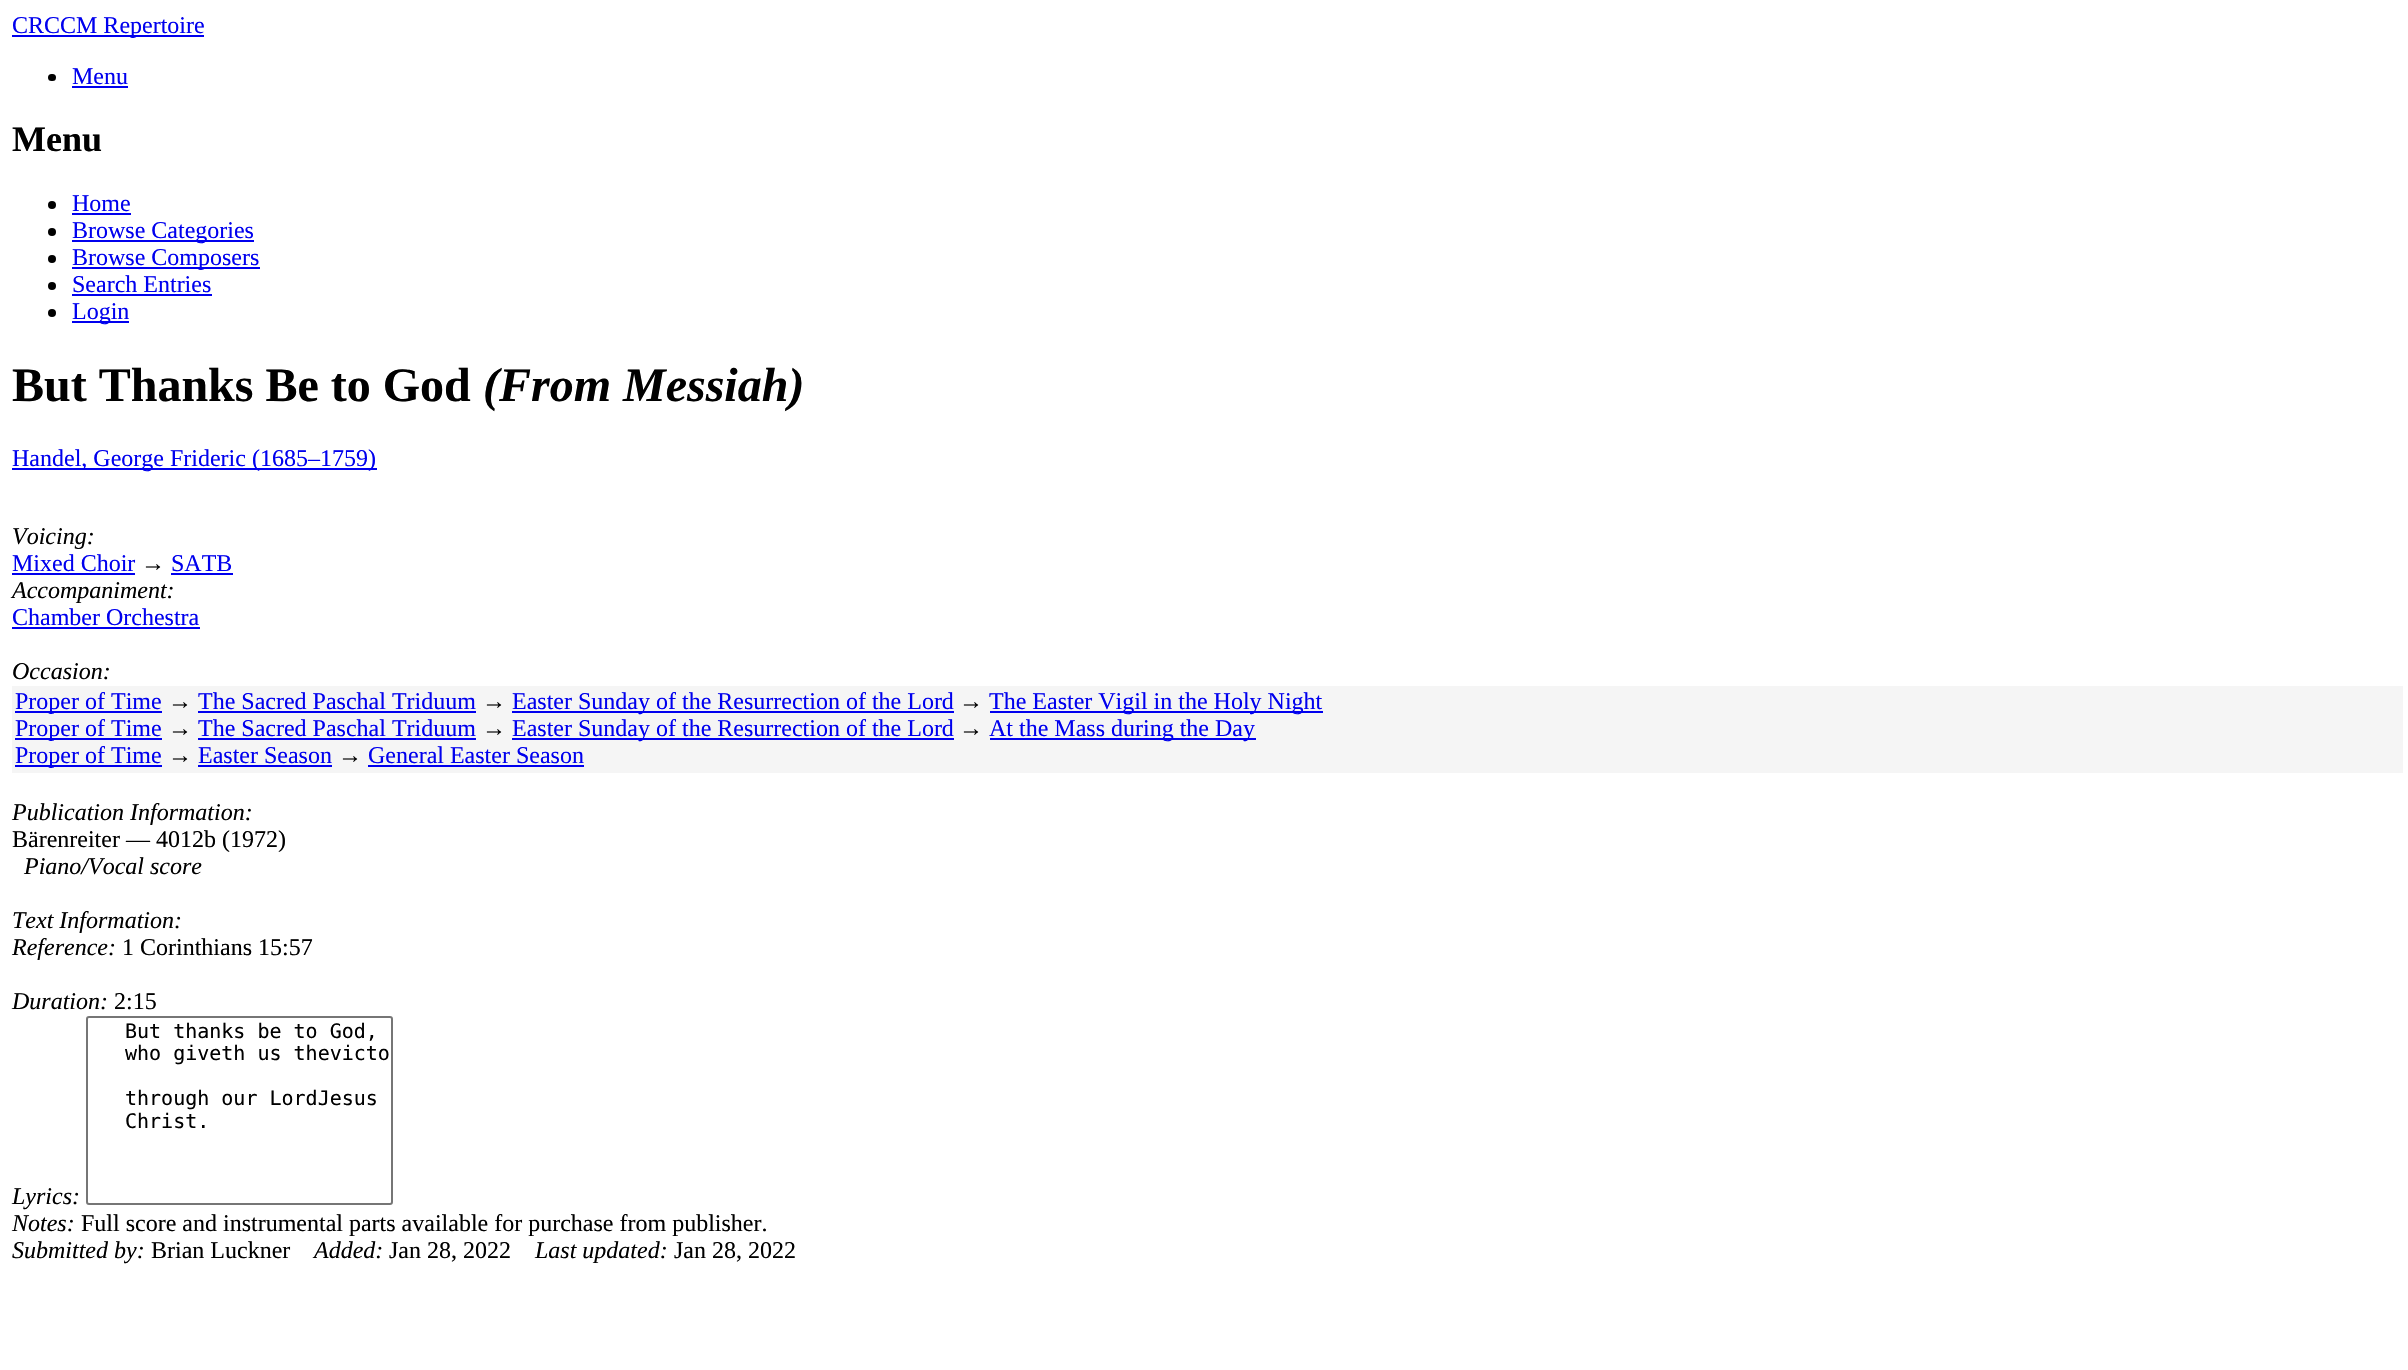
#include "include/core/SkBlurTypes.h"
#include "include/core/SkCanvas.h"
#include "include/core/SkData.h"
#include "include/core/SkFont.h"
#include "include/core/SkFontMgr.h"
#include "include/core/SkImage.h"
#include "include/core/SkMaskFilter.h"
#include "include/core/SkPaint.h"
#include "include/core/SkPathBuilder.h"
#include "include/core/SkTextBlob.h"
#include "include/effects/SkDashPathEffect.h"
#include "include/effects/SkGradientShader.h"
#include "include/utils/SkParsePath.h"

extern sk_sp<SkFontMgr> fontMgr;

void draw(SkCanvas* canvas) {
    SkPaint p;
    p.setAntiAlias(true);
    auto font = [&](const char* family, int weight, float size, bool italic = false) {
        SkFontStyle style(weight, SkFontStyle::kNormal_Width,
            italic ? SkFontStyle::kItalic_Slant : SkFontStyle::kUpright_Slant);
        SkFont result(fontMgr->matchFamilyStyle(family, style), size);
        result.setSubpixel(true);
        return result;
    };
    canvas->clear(0xFFFFFFFF);
    p.setColor(0xFF0000EE);
    canvas->drawRect(SkRect::MakeLTRB(12, 35, 204, 37), p);
    auto font1 = font("Liberation Serif", 400, 24);
    canvas->drawString("CRCCM Repertoire", 12, 33, font1, p);
    p.setColor(0xFF000000);
    canvas->drawRoundRect(SkRect::MakeLTRB(48, 74, 56, 81), 3.5f, 3.5f, p);
    p.setColor(0xFF0000EE);
    canvas->drawString("Menu", 72, 84, font1, p);
    canvas->drawRect(SkRect::MakeLTRB(72, 86, 128, 88), p);
    auto font2 = font("Liberation Serif", 700, 36);
    p.setColor(0xFF000000);
    canvas->drawString("Menu", 12, 151, font2, p);
    canvas->drawCircle(52, 205, 4, p);
    p.setColor(0xFF0000EE);
    canvas->drawString("Home", 72, 211, font1, p);
    canvas->drawRect(SkRect::MakeLTRB(72, 213, 131, 215), p);
    p.setColor(0xFF000000);
    canvas->drawCircle(52, 232, 4, p);
    p.setColor(0xFF0000EE);
    canvas->drawRect(SkRect::MakeLTRB(72, 240, 254, 242), p);
    canvas->drawString("Browse Categories", 72, 238, font1, p);
    p.setColor(0xFF000000);
    canvas->drawCircle(52, 259, 4, p);
    p.setColor(0xFF0000EE);
    canvas->drawRect(SkRect::MakeLTRB(72, 267, 260, 269), p);
    canvas->drawString("Browse Composers", 72, 265, font1, p);
    p.setColor(0xFF000000);
    canvas->drawCircle(52, 286, 4, p);
    p.setColor(0xFF0000EE);
    canvas->drawString("Search Entries", 72, 292, font1, p);
    canvas->drawRect(SkRect::MakeLTRB(72, 294, 212, 296), p);
    p.setColor(0xFF000000);
    canvas->drawCircle(52, 313, 4, p);
    p.setColor(0xFF0000EE);
    canvas->drawRect(SkRect::MakeLTRB(72, 321, 129, 323), p);
    canvas->drawString("Login", 72, 319, font1, p);
    auto font3 = font("Liberation Serif", 700, 48);
    p.setColor(0xFF000000);
    canvas->drawString("But Thanks Be to God", 12, 401, font3, p);
    auto font4 = font("Liberation Serif", 700, 48, true);
    canvas->drawString("(From Messiah)", 483, 401, font4, p);
    p.setColor(0xFF0000EE);
    canvas->drawRect(SkRect::MakeLTRB(12, 468, 377, 470), p);
    canvas->drawString("Handel, George Frideric (1685–1759)", 12, 466, font1, p);
    auto font5 = font("Liberation Serif", 400, 24, true);
    p.setColor(0xFF000000);
    canvas->drawString("Voicing:", 12, 544, font5, p);
    p.setColor(0xFF0000EE);
    canvas->drawString("Mixed Choir", 12, 571, font1, p);
    canvas->drawRect(SkRect::MakeLTRB(12, 573, 135, 575), p);
    p.setColor(0xFF000000);
    canvas->drawString("→", 141, 571, font1, p);
    p.setColor(0xFF0000EE);
    canvas->drawString("SATB", 171, 571, font1, p);
    canvas->drawRect(SkRect::MakeLTRB(171, 573, 233, 575), p);
    p.setColor(0xFF000000);
    canvas->drawString("Accompaniment:", 12, 598, font5, p);
    p.setColor(0xFF0000EE);
    canvas->drawString("Chamber Orchestra", 12, 625, font1, p);
    canvas->drawRect(SkRect::MakeLTRB(12, 627, 200, 629), p);
    p.setColor(0xFF000000);
    canvas->drawString("Occasion:", 12, 679, font5, p);
    p.setColor(0xFFF5F5F5);
    canvas->drawRect(SkRect::MakeLTRB(12, 686, 2403, 773), p);
    p.setColor(0xFF0000EE);
    canvas->drawRect(SkRect::MakeLTRB(15, 711, 162, 713), p);
    canvas->drawString("Proper of Time", 15, 709, font1, p);
    p.setColor(0xFF000000);
    canvas->drawString("→", 168, 709, font1, p);
    p.setColor(0xFF0000EE);
    canvas->drawString("The Sacred Paschal Triduum", 198, 709, font1, p);
    canvas->drawRect(SkRect::MakeLTRB(198, 711, 476, 713), p);
    p.setColor(0xFF000000);
    canvas->drawString("→", 482, 709, font1, p);
    p.setColor(0xFF0000EE);
    canvas->drawRect(SkRect::MakeLTRB(512, 711, 954, 713), p);
    canvas->drawString("Easter Sunday of the Resurrection of the Lord", 512, 709, font1, p);
    p.setColor(0xFF000000);
    canvas->drawString("→", 959, 709, font1, p);
    p.setColor(0xFF0000EE);
    canvas->drawRect(SkRect::MakeLTRB(990, 711, 1323, 713), p);
    canvas->drawString("The Easter Vigil in the Holy Night", 989, 709, font1, p);
    canvas->drawRect(SkRect::MakeLTRB(15, 738, 162, 740), p);
    canvas->drawString("Proper of Time", 15, 736, font1, p);
    p.setColor(0xFF000000);
    canvas->drawString("→", 168, 736, font1, p);
    p.setColor(0xFF0000EE);
    canvas->drawString("The Sacred Paschal Triduum", 198, 736, font1, p);
    canvas->drawRect(SkRect::MakeLTRB(198, 738, 476, 740), p);
    p.setColor(0xFF000000);
    canvas->drawString("→", 482, 736, font1, p);
    p.setColor(0xFF0000EE);
    canvas->drawRect(SkRect::MakeLTRB(512, 738, 954, 740), p);
    canvas->drawString("Easter Sunday of the Resurrection of the Lord", 512, 736, font1, p);
    p.setColor(0xFF000000);
    canvas->drawString("→", 959, 736, font1, p);
    p.setColor(0xFF0000EE);
    canvas->drawRect(SkRect::MakeLTRB(990, 738, 1256, 740), p);
    canvas->drawString("At the Mass during the Day", 989, 736, font1, p);
    canvas->drawRect(SkRect::MakeLTRB(15, 765, 162, 767), p);
    canvas->drawString("Proper of Time", 15, 763, font1, p);
    p.setColor(0xFF000000);
    canvas->drawString("→", 168, 763, font1, p);
    p.setColor(0xFF0000EE);
    canvas->drawString("Easter Season", 198, 763, font1, p);
    canvas->drawRect(SkRect::MakeLTRB(198, 765, 332, 767), p);
    p.setColor(0xFF000000);
    canvas->drawString("→", 338, 763, font1, p);
    p.setColor(0xFF0000EE);
    canvas->drawString("General Easter Season", 368, 763, font1, p);
    canvas->drawRect(SkRect::MakeLTRB(368, 765, 584, 767), p);
    p.setColor(0xFF000000);
    canvas->drawString("Publication Information:", 12, 820, font5, p);
    canvas->drawString("Bärenreiter — 4012b (1972)", 12, 847, font1, p);
    {
        const struct { const char* s; float x, y; } items[] = {
            {"Piano/Vocal score", 24, 874},
            {"Text Information:", 12, 928},
            {"Reference:", 12, 955},
        };
        for (auto [s, x, y] : items) {
            canvas->drawString(s, x, y, font5, p);
        }
    }
    canvas->drawString("1 Corinthians 15:57", 122, 955, font1, p);
    canvas->drawString("Duration:", 12, 1009, font5, p);
    canvas->drawString("2:15", 114, 1009, font1, p);
    p.setStyle(SkPaint::kStroke_Style);
    p.setStrokeWidth(2);
    p.setColor(0xFF767676);
    canvas->drawRoundRect(SkRect::MakeLTRB(87, 1017, 392, 1204), 2, 2, p);
    auto font6 = font("DejaVu Sans Mono", 400, 20);
    p.setStyle(SkPaint::kFill_Style);
    p.setColor(0xFF000000);
    {
        const struct { const char* s; float x, y; } items[] = {
            {"But thanks be to God,", 125, 1038},
            {"who giveth us thevicto", 125, 1060},
            {"through our LordJesus", 125, 1105},
            {"Christ.", 125, 1128},
        };
        for (auto [s, x, y] : items) {
            canvas->drawString(s, x, y, font6, p);
        }
    }
    canvas->drawString("Lyrics:", 12, 1204, font5, p);
    canvas->drawString("Notes:", 12, 1231, font5, p);
    canvas->drawString("Full score and instrumental parts available for purchase from publisher.", 81, 1231, font1, p);
    canvas->drawString("Submitted by:", 12, 1258, font5, p);
    canvas->drawString("Brian Luckner", 151, 1258, font1, p);
    canvas->drawString("Added:", 314, 1258, font5, p);
    canvas->drawString("Jan 28, 2022", 389, 1258, font1, p);
    canvas->drawString("Last updated:", 535, 1258, font5, p);
    canvas->drawString("Jan 28, 2022", 674, 1258, font1, p);
}
